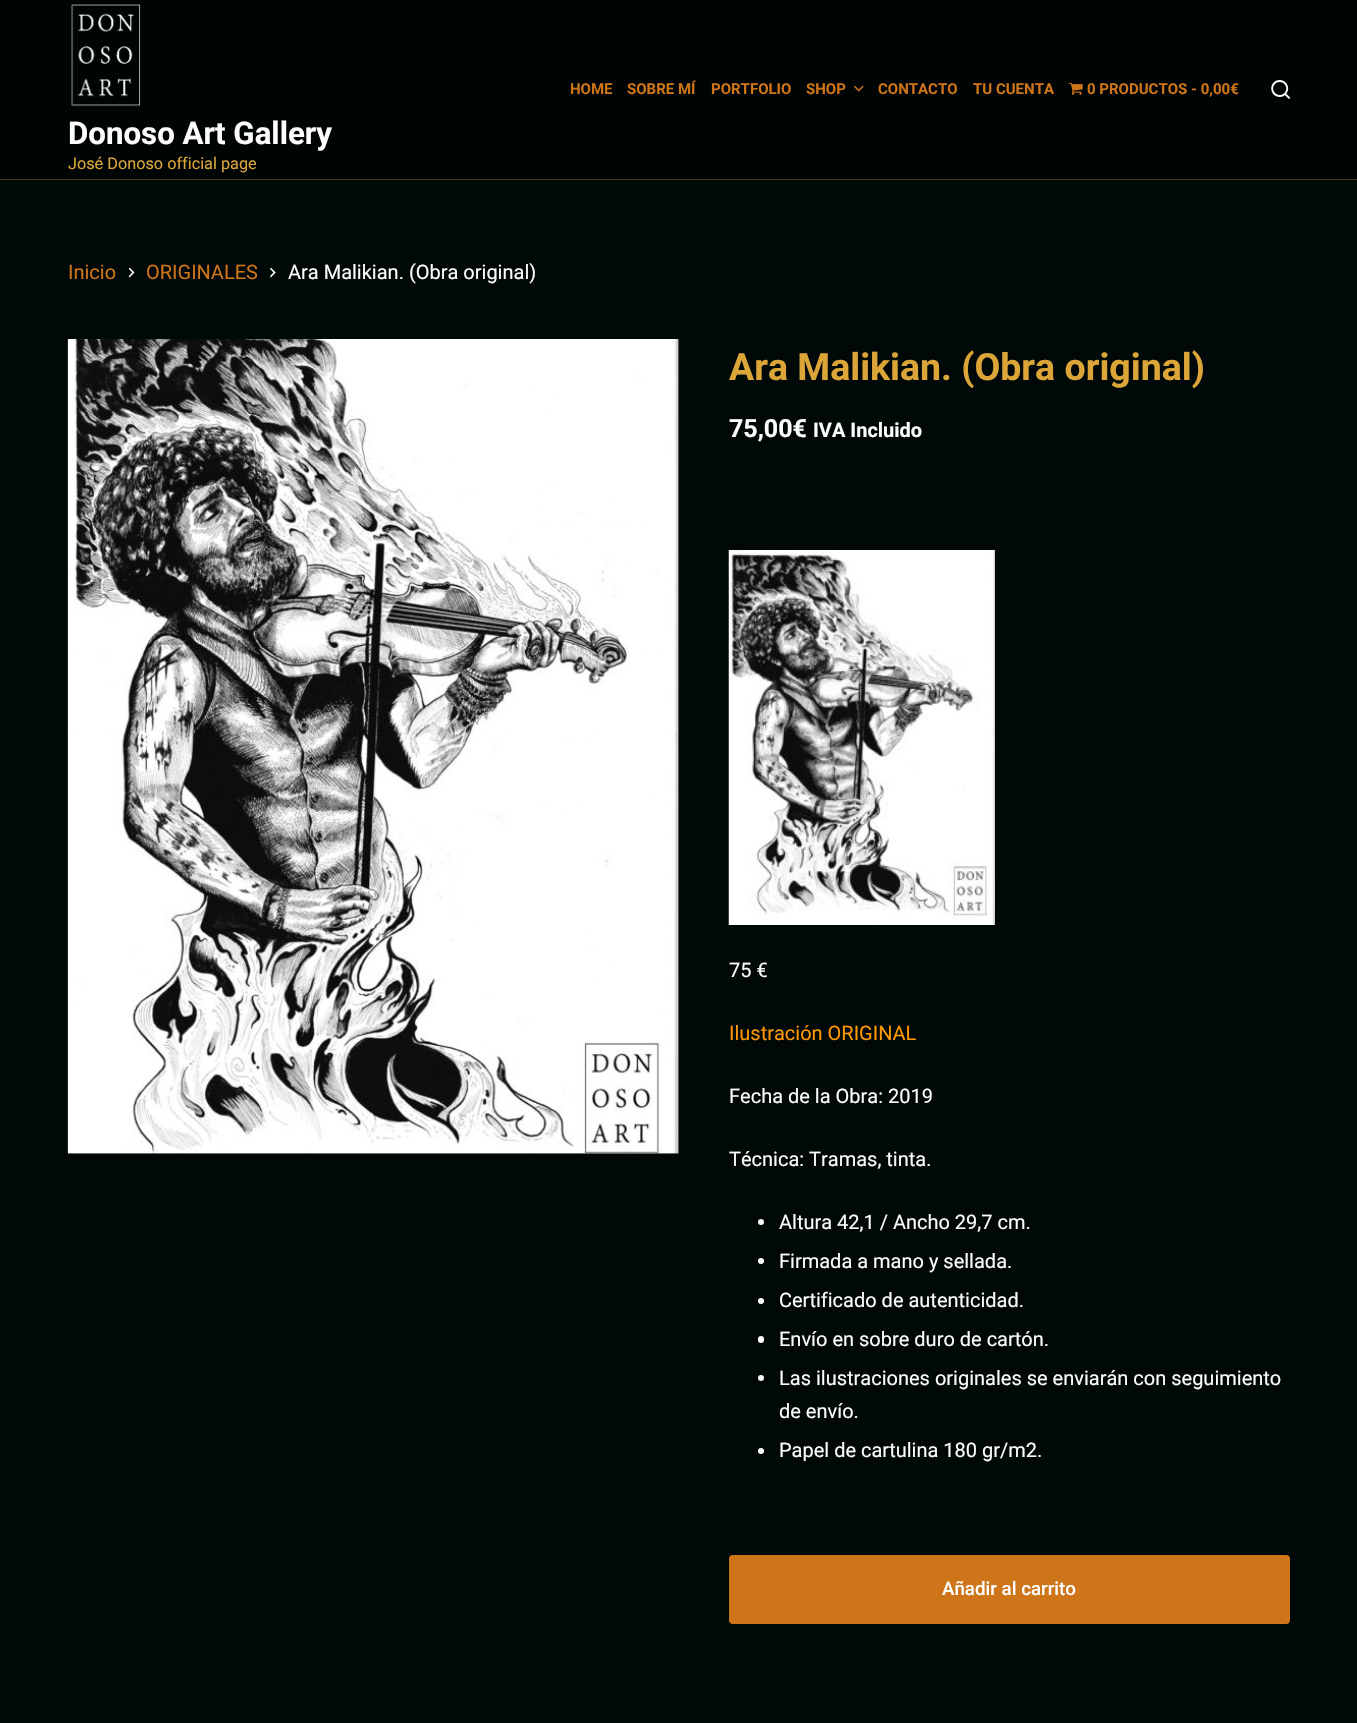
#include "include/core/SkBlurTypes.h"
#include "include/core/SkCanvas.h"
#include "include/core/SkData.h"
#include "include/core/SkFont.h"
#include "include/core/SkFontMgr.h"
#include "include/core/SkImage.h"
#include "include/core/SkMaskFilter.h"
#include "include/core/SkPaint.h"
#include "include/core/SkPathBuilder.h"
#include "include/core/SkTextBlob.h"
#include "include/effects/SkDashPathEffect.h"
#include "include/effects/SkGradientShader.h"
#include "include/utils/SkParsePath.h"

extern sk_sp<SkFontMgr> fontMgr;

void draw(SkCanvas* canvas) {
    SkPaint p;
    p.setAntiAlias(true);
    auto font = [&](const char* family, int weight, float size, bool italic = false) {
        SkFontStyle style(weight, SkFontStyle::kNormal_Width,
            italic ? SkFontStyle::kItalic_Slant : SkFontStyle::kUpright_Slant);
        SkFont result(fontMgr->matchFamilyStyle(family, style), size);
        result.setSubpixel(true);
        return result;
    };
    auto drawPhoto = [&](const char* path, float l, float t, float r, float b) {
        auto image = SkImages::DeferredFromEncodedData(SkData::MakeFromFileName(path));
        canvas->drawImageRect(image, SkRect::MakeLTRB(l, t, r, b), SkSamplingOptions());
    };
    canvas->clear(0xFF000808);
    p.setColor(0xFF000405);
    canvas->drawRect(SkRect::MakeLTRB(0, 0, 1357, 179), p);
    p.setColor(0xFF463815);
    canvas->drawRect(SkRect::MakeLTRB(0, 179, 1357, 180), p);
    auto font1 = font("Roboto", 700, 15);
    p.setColor(0xFFCD7518);
    {
        const struct { const char* s; float x, y; } items[] = {
            {"HOME", 570, 94},
            {"SOBRE MÍ", 627, 94},
            {"PORTFOLIO", 711, 94},
            {"SHOP", 806, 94},
        };
        for (auto [s, x, y] : items) {
            canvas->drawString(s, x, y, font1, p);
        }
    }
    drawPhoto("media/1.png", 854, 86, 864, 92);
    canvas->drawString("CONTACTO", 878, 94, font1, p);
    canvas->drawString("TU CUENTA", 973, 94, font1, p);
    drawPhoto("media/2.png", 1068, 83, 1083, 95);
    canvas->drawString("0 PRODUCTOS - 0,00€", 1087, 94, font1, p);
    drawPhoto("media/3.png", 1271, 80, 1290, 99);
    drawPhoto("media/4.png", 71, 4, 141, 107);
    auto font2 = font("Roboto", 700, 31.25f);
    p.setColor(0xFFFDFDFD);
    canvas->drawString("Donoso Art Gallery", 68, 144, font2, p);
    auto font3 = font("Roboto", 400, 16.25f);
    p.setColor(0xFFDCA538);
    canvas->drawString("José Donoso official page", 68, 169, font3, p);
    auto font4 = font("Roboto", 400, 20);
    p.setColor(0xFFCD7518);
    canvas->drawString("Inicio", 68, 279, font4, p);
    drawPhoto("media/5.png", 128, 268, 135, 278);
    canvas->drawString("ORIGINALES", 146, 279, font4, p);
    drawPhoto("media/6.png", 270, 268, 276, 278);
    p.setColor(0xFFFDFDFD);
    canvas->drawString("Ara Malikian. (Obra original)", 288, 279, font4, p);
    drawPhoto("media/7.png", 67, 339, 679, 1154);
    auto font5 = font("Roboto", 700, 37.5f);
    p.setColor(0xFFDCA538);
    canvas->drawString("Ara Malikian. (Obra original)", 729, 380, font5, p);
    auto font6 = font("Roboto", 700, 25);
    p.setColor(0xFFFDFDFD);
    canvas->drawString("75,00€", 729, 437, font6, p);
    auto font7 = font("Roboto", 700, 20);
    canvas->drawString("IVA Incluido", 813, 437, font7, p);
    drawPhoto("media/8.png", 728, 550, 995, 925);
    canvas->drawString("75 €", 729, 977, font4, p);
    p.setColor(0xFFFF9900);
    canvas->drawString("Ilustración ORIGINAL", 729, 1040, font4, p);
    p.setColor(0xFFFDFDFD);
    canvas->drawString("Fecha de la Obra: 2019", 729, 1103, font4, p);
    canvas->drawString("Técnica: Tramas, tinta.", 729, 1166, font4, p);
    canvas->drawCircle(761, 1222, 3, p);
    canvas->drawString("Altura 42,1 / Ancho 29,7 cm.", 779, 1229, font4, p);
    canvas->drawCircle(761, 1261, 3, p);
    canvas->drawString("Firmada a mano y sellada.", 779, 1268, font4, p);
    canvas->drawCircle(761, 1301, 3, p);
    canvas->drawString("Certificado de autenticidad.", 779, 1307, font4, p);
    canvas->drawRoundRect(SkRect::MakeLTRB(758, 1336, 764, 1343), 3, 3, p);
    canvas->drawString("Envío en sobre duro de cartón.", 779, 1346, font4, p);
    canvas->drawCircle(761, 1378, 3, p);
    canvas->drawString("Las ilustraciones originales se enviarán con seguimiento", 779, 1385, font4, p);
    canvas->drawString("de envío.", 779, 1418, font4, p);
    canvas->drawCircle(761, 1451, 3, p);
    canvas->drawString("Papel de cartulina 180 gr/m2.", 779, 1457, font4, p);
    p.setColor(0xFFCD7518);
    canvas->drawRoundRect(SkRect::MakeLTRB(729, 1555, 1290, 1624), 4, 4, p);
    auto font8 = font("Roboto", 500, 18.75f);
    p.setColor(0xFFFDFDFD);
    canvas->drawString("Añadir al carrito", 942, 1595, font8, p);
}
